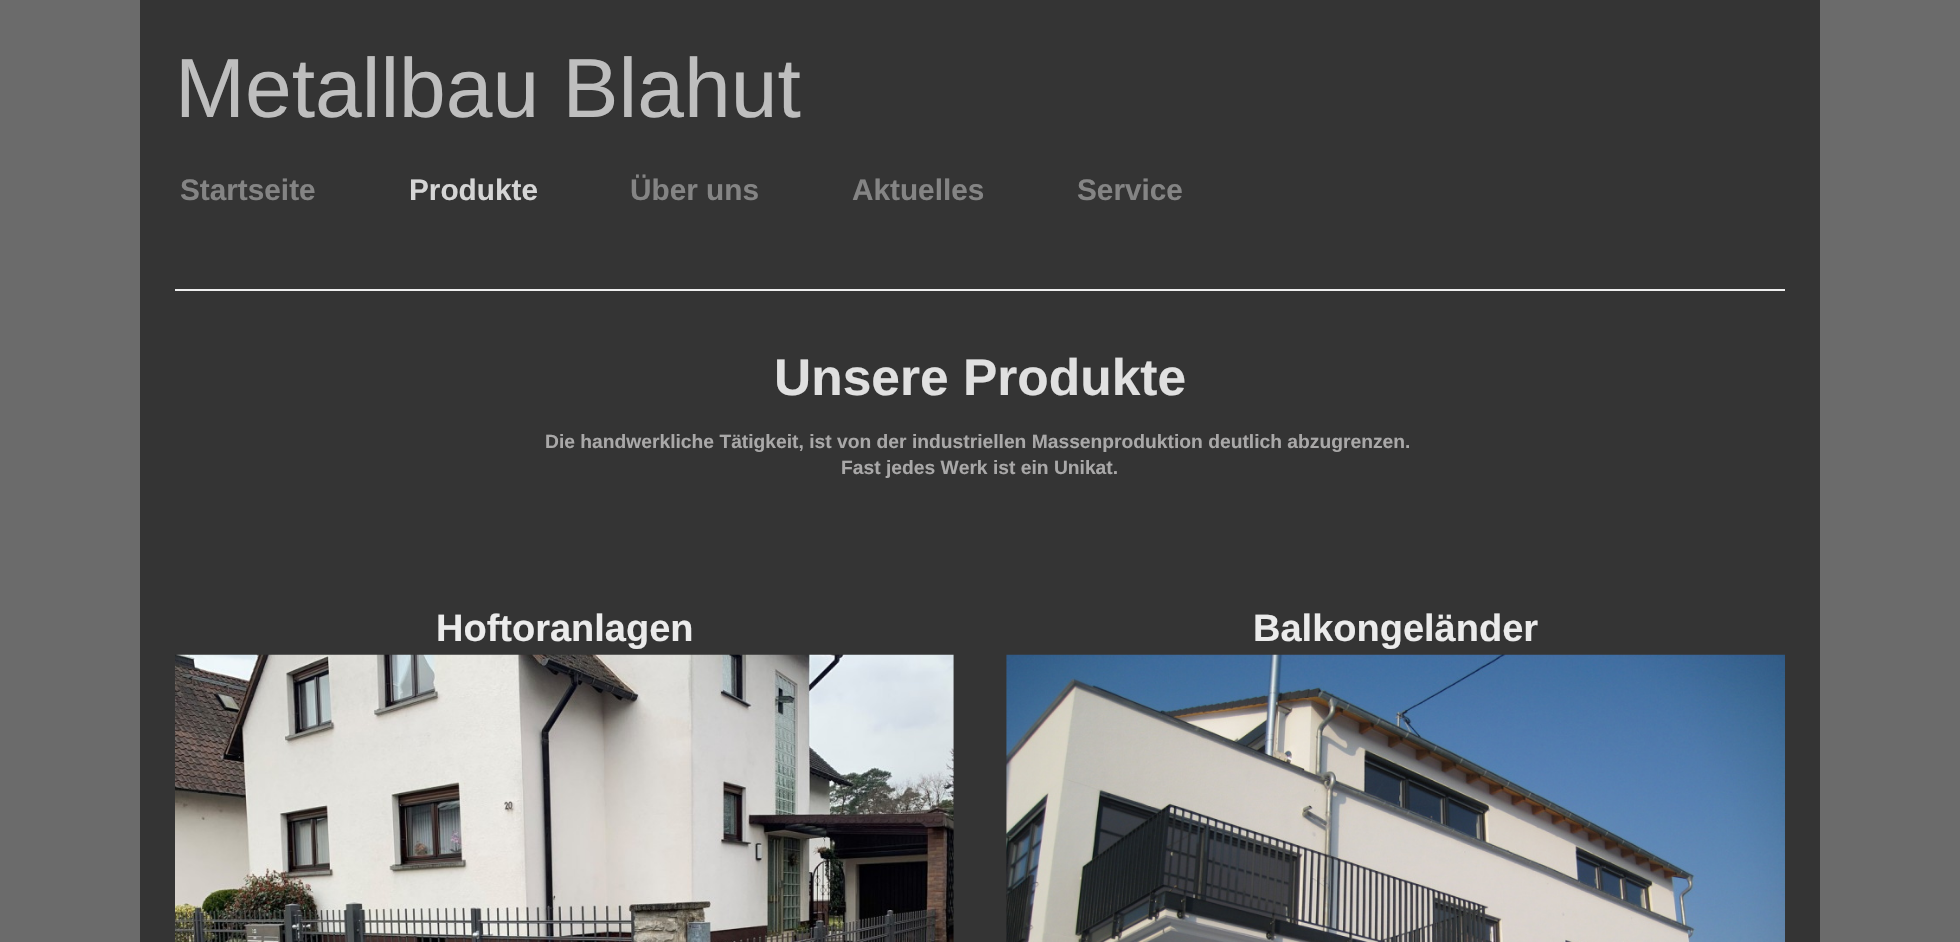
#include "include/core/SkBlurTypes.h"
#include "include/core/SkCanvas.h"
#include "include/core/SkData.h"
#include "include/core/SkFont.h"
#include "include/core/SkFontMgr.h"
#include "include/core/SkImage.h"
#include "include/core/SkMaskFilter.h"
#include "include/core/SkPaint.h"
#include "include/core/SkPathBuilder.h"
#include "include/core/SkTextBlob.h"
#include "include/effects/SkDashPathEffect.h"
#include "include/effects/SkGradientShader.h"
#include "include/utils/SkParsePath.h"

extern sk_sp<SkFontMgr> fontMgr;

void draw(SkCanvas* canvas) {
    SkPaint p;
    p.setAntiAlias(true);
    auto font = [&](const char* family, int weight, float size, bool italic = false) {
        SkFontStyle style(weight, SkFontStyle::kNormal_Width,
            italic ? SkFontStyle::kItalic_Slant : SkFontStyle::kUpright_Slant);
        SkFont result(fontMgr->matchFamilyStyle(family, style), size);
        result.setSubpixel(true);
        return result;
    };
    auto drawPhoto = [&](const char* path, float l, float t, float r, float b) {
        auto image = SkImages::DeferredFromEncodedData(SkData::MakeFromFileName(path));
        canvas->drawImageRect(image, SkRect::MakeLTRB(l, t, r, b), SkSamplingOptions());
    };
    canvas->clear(0xFF6B6B6B);
    p.setColor(0xFF343434);
    canvas->drawRect(SkRect::MakeLTRB(140, 0, 1820, 942), p);
    auto font1 = font("Liberation Sans", 400, 84);
    p.setColor(0xFFBEBEBE);
    canvas->drawString("Metallbau Blahut", 175, 117, font1, p);
    auto font2 = font("Liberation Sans", 700, 29.75f);
    p.setColor(0xFF848484);
    canvas->drawString("Startseite", 180, 200, font2, p);
    p.setColor(0xFFD5D5D5);
    canvas->drawString("Produkte", 409, 200, font2, p);
    p.setColor(0xFF848484);
    {
        const struct { const char* s; float x, y; } items[] = {
            {"Über uns", 630, 200},
            {"Aktuelles", 852, 200},
            {"Service", 1077, 200},
        };
        for (auto [s, x, y] : items) {
            canvas->drawString(s, x, y, font2, p);
        }
    }
    p.setColor(0xFFEEEEEE);
    canvas->drawRect(SkRect::MakeLTRB(175, 289, 1785, 291), p);
    auto font3 = font("Liberation Sans", 700, 51.5f);
    p.setColor(0xFFE0E0E0);
    canvas->drawString("Unsere Produkte", 774, 395, font3, p);
    auto font4 = font("Liberation Sans", 700, 19.25f);
    p.setColor(0xFFA9A8A8);
    canvas->drawString("Die handwerkliche Tätigkeit, ist von der industriellen Massenproduktion deutlich abzugrenzen.", 545, 448, font4, p);
    canvas->drawString("Fast jedes Werk ist ein Unikat.", 841, 474, font4, p);
    auto font5 = font("Liberation Sans", 700, 38);
    p.setColor(0xFFEBEBEB);
    canvas->drawString("Hoftoranlagen", 436, 641, font5, p);
    drawPhoto("media/1.png", 175, 654, 954, 942);
    canvas->drawString("Balkongeländer", 1253, 641, font5, p);
    drawPhoto("media/2.png", 1006, 654, 1785, 942);
}
